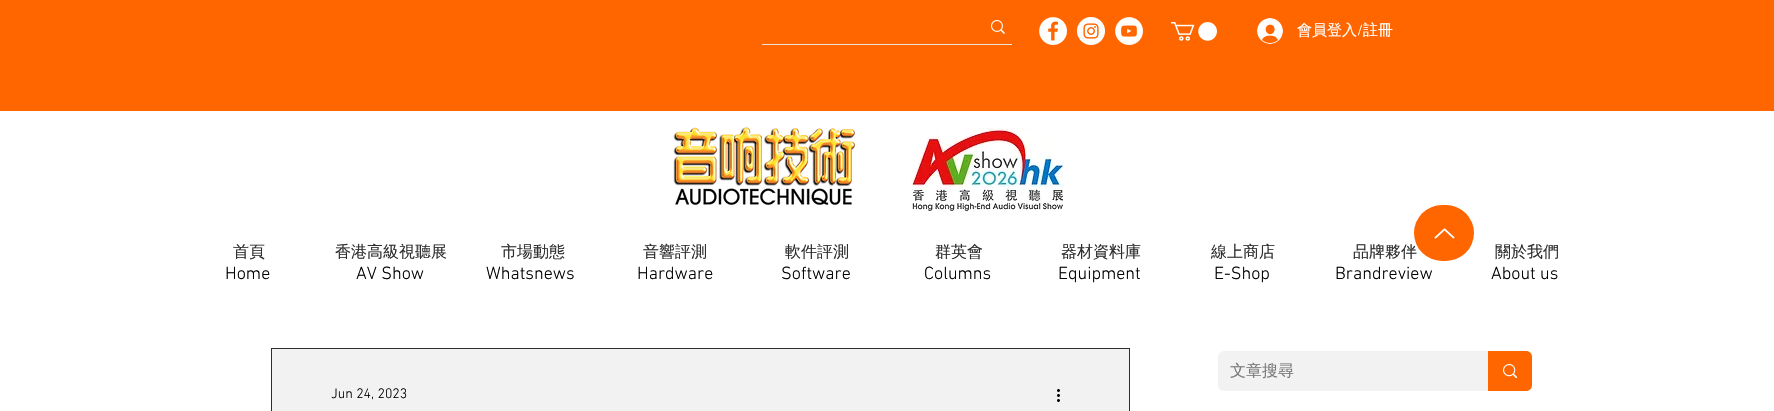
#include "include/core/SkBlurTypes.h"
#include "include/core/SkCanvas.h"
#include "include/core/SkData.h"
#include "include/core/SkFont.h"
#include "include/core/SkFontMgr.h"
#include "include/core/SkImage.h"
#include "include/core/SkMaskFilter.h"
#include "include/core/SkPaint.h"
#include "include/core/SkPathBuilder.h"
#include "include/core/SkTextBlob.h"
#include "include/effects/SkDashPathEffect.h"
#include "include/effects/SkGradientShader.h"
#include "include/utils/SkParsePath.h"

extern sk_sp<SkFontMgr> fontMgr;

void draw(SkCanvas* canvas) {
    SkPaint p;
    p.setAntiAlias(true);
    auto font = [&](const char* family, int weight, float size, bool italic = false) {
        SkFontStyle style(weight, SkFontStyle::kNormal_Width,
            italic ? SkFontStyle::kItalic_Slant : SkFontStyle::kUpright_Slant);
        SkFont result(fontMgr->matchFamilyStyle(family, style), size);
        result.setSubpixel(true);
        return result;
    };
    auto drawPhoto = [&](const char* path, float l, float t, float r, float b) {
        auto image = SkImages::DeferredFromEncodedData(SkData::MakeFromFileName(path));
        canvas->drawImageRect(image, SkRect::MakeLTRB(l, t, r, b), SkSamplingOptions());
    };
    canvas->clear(0xFFFFFFFF);
    p.setColor(0xFFFF6600);
    canvas->drawRect(SkRect::MakeLTRB(0, 0, 1774, 111), p);
    p.setColor(0xFFEBE5D6);
    canvas->drawRect(SkRect::MakeLTRB(762, 44, 1012, 45), p);
    drawPhoto("media/1.png", 991, 20, 1005, 34);
    drawPhoto("media/2.png", 1039, 17, 1067, 45);
    drawPhoto("media/3.png", 1077, 17, 1105, 45);
    drawPhoto("media/4.png", 1115, 17, 1143, 45);
    drawPhoto("media/5.png", 1171, 22, 1217, 41);
    drawPhoto("media/6.png", 1257, 18, 1283, 44);
    auto font1 = font("WenQuanYi Zen Hei", 500, 15);
    p.setColor(0xFFFFFFFF);
    canvas->drawString("會員登入", 1297, 35, font1, p);
    auto font2 = font("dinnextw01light", 300, 15);
    canvas->drawString("/", 1357, 35, font2, p);
    canvas->drawString("註冊", 1363, 35, font1, p);
    drawPhoto("media/7.png", 673, 127, 855, 205);
    drawPhoto("media/8.png", 911, 128, 1064, 212);
    auto font3 = font("WenQuanYi Zen Hei", 500, 16);
    p.setColor(0xFF2E2E2E);
    {
        const struct { const char* s; float x, y; } items[] = {
            {"首頁", 233, 257},
            {"香港高級視聽展", 335, 257},
            {"市場動態", 501, 257},
            {"音響評測", 643, 257},
            {"軟件評測", 785, 257},
            {"群英會", 935, 257},
            {"器材資料庫", 1061, 257},
            {"線上商店", 1211, 257},
            {"品牌夥伴", 1353, 257},
            {"關於我們", 1495, 257},
        };
        for (auto [s, x, y] : items) {
            canvas->drawString(s, x, y, font3, p);
        }
    }
    auto font4 = font("dinnextw01light", 300, 18);
    p.setColor(0xFF000000);
    {
        const struct { const char* s; float x, y; } items[] = {
            {"Home", 225, 279},
            {"AV Show", 356, 279},
            {"Whatsnews", 486, 279},
            {"Hardware", 637, 279},
            {"Software", 781, 279},
            {"Columns", 924, 279},
            {"Equipment", 1058, 279},
            {"E-Shop", 1214, 279},
            {"Brandreview", 1335, 279},
            {"About us", 1491, 279},
        };
        for (auto [s, x, y] : items) {
            canvas->drawString(s, x, y, font4, p);
        }
    }
    p.setColor(0xFFFF6600);
    canvas->drawRoundRect(SkRect::MakeLTRB(1414, 205, 1474, 261), 28, 28, p);
    drawPhoto("media/9.png", 1434, 228, 1455, 239);
    p.setColor(0xFFF2F2F2);
    canvas->drawRoundRect(SkRect::MakeLTRB(1218, 351, 1532, 391), 6, 6, p);
    p.setColor(0xFF787878);
    canvas->drawString("文章搜尋", 1230, 376, font3, p);
    p.setColor(0xFFFF6600);
    canvas->drawPath(SkPathBuilder().moveTo(1488, 351).lineTo(1526, 351).cubicTo(1529.5f, 351, 1532, 353.5f, 1532, 357).lineTo(1532, 385).cubicTo(1532, 388.5f, 1529.5f, 391, 1526, 391).lineTo(1488, 391).close().detach(), p);
    drawPhoto("media/10.png", 1503, 364, 1517, 378);
    p.setColor(0xFFF2F2F2);
    canvas->drawRect(SkRect::MakeLTRB(271.5f, 348.5f, 1129.5f, 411.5f), p);
    p.setStyle(SkPaint::kStroke_Style);
    p.setStrokeWidth(1);
    p.setColor(0xFF2E2E2E);
    canvas->drawRect(SkRect::MakeLTRB(271.5f, 348.5f, 1129.5f, 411.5f), p);
    auto font5 = font("dinnextw01light", 300, 14);
    p.setStyle(SkPaint::kFill_Style);
    p.setColor(0xFF000000);
    canvas->drawString("Jun 24, 2023", 331, 398, font5, p);
    drawPhoto("media/11.png", 1057, 389, 1060, 402);
}
